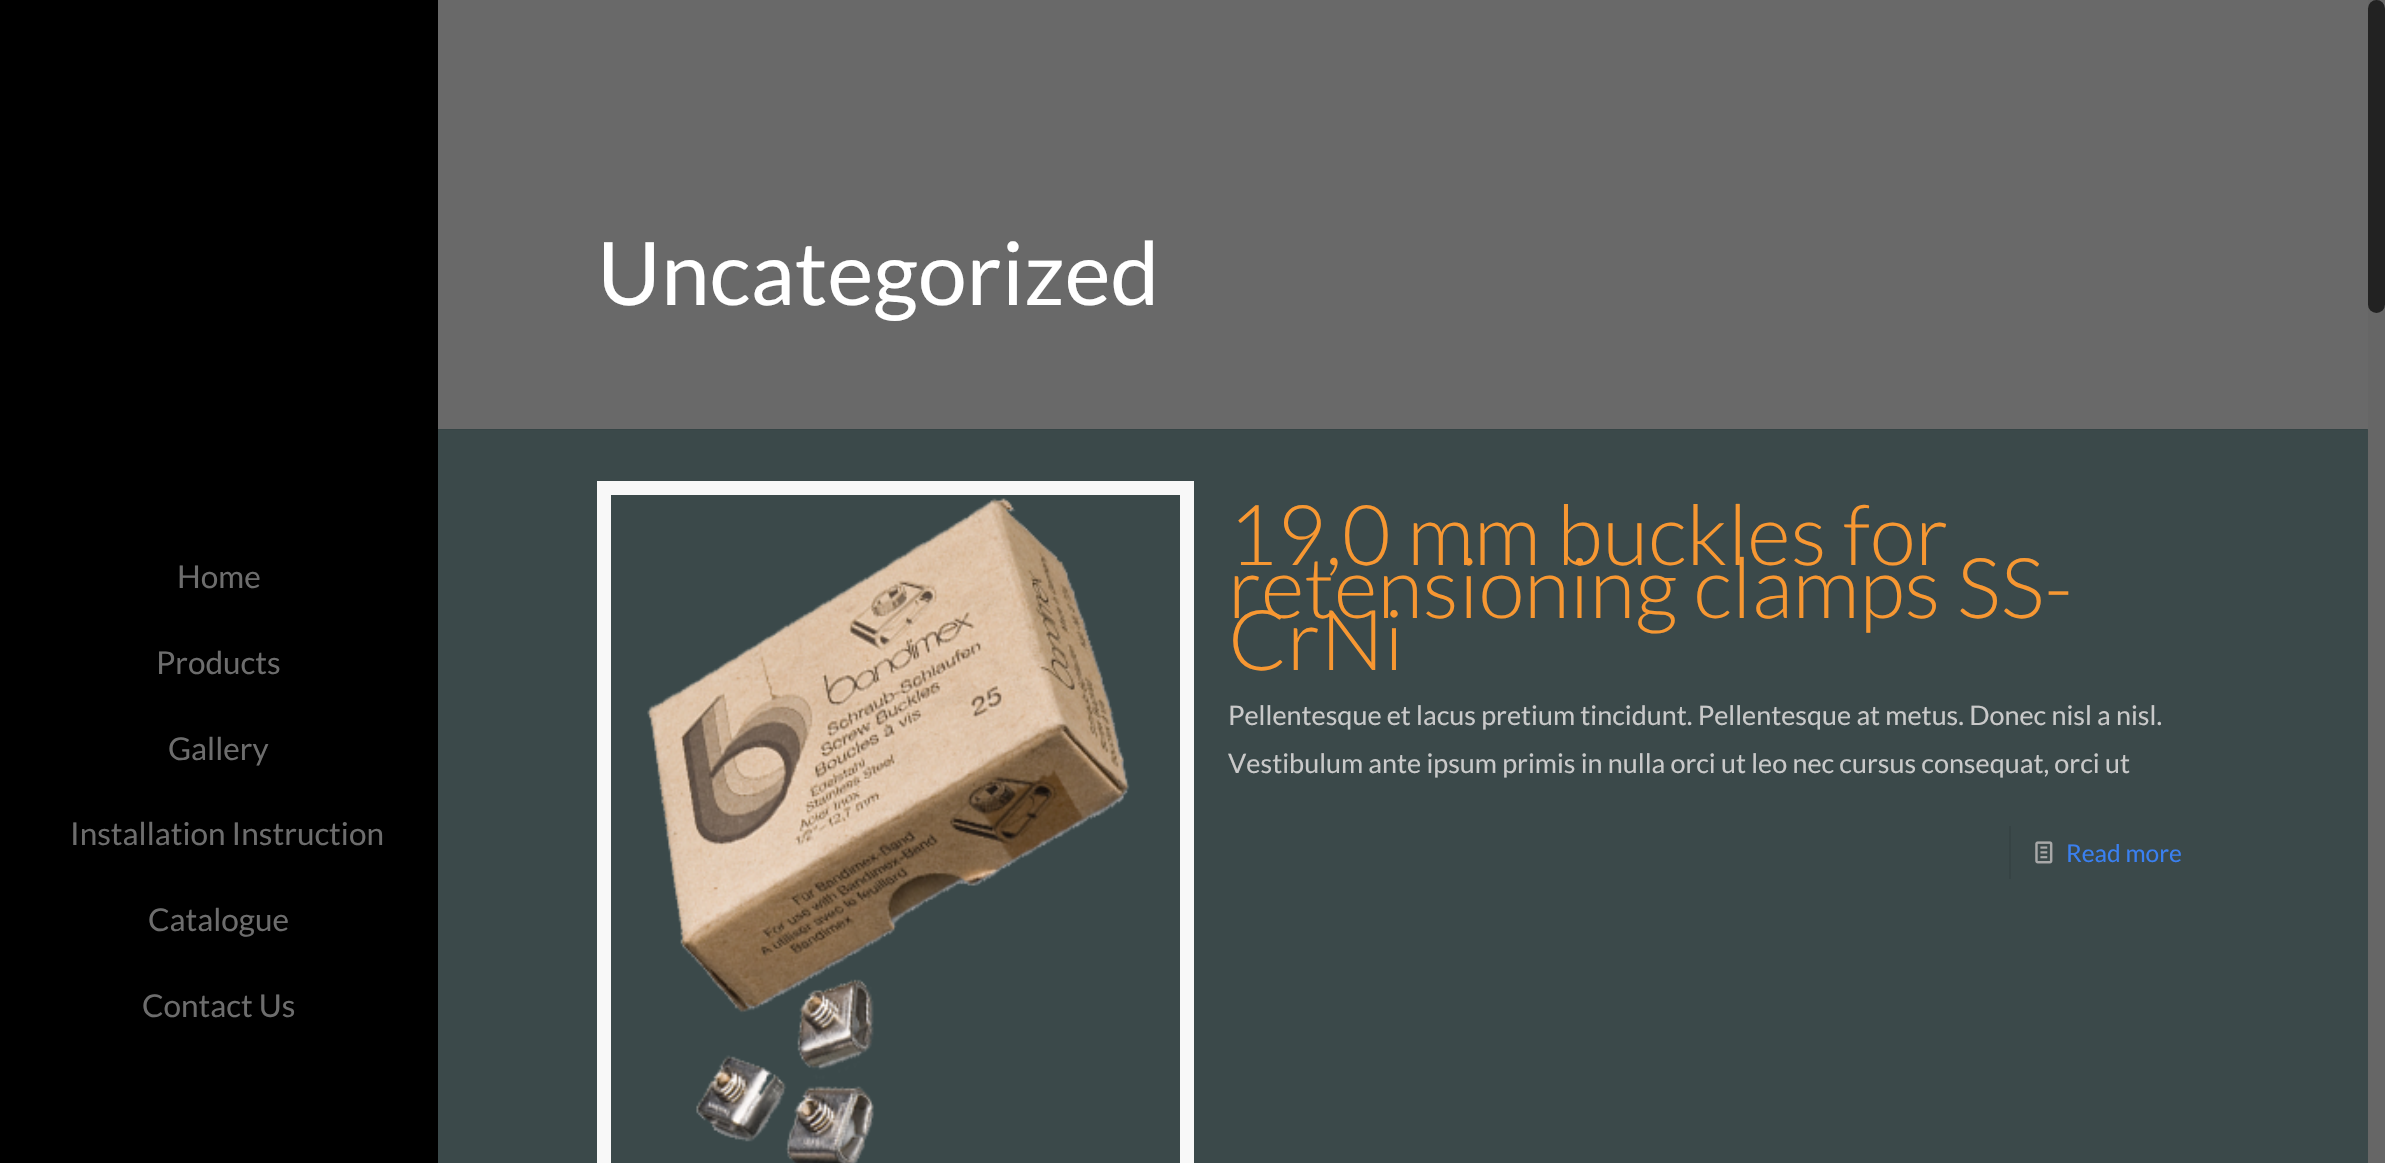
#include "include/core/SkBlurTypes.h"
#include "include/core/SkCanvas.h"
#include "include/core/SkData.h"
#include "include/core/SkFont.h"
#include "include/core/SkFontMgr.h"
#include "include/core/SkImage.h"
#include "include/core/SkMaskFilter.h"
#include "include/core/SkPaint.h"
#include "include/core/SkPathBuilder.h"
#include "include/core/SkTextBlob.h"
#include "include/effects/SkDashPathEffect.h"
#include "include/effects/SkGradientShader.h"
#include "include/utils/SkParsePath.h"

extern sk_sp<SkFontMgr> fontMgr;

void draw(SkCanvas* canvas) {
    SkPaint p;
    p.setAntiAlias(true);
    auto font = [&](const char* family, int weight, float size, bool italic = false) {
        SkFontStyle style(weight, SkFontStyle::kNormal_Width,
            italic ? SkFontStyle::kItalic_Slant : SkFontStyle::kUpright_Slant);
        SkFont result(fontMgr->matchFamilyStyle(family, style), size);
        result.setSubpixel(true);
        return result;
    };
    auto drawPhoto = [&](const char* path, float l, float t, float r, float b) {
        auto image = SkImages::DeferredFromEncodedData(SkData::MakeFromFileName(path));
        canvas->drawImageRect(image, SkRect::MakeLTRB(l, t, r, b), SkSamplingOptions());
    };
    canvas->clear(0xFF3B494A);
    p.setColor(0xFF000000);
    canvas->drawRect(SkRect::MakeLTRB(0, 0, 438, 1163), p);
    auto font1 = font("Lato", 400, 31.5f);
    p.setColor(0xFF6D6D6D);
    {
        const struct { const char* s; float x, y; } items[] = {
            {"Home", 177, 588},
            {"Products", 156, 674},
            {"Gallery", 168, 760},
            {"Installation Instruction", 70, 845},
            {"Catalogue", 148, 931},
            {"Contact Us", 142, 1017},
        };
        for (auto [s, x, y] : items) {
            canvas->drawString(s, x, y, font1, p);
        }
    }
    p.setColor(0xFF696969);
    canvas->drawRect(SkRect::MakeLTRB(438, 0, 2368, 429), p);
    auto font2 = font("Lato", 400, 87.5f);
    p.setColor(0xFFFFFFFF);
    canvas->drawString("Uncategorized", 597, 305, font2, p);
    p.setColor(0xFF374546);
    canvas->drawRect(SkRect::MakeLTRB(438, 429, 2367, 430), p);
    p.setStyle(SkPaint::kStroke_Style);
    p.setStrokeWidth(14);
    p.setColor(0xFFF8F8F8);
    canvas->drawRect(SkRect::MakeLTRB(604, 488, 1187, 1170), p);
    drawPhoto("media/1.png", 647, 498, 1130, 1163);
    auto font3 = font("Lato", 300, 84);
    p.setStyle(SkPaint::kFill_Style);
    p.setColor(0xFFF79732);
    {
        const struct { const char* s; float x, y; } items[] = {
            {"19,0 mm buckles for", 1228, 565},
            {"retensioning clamps SS-", 1228, 618},
            {"CrNi", 1228, 670},
        };
        for (auto [s, x, y] : items) {
            canvas->drawString(s, x, y, font3, p);
        }
    }
    auto font4 = font("Lato", 400, 26.95f);
    p.setColor(0xFFC9C9C9);
    canvas->drawString("Pellentesque et lacus pretium tincidunt. Pellentesque at metus. Donec nisl a nisl.", 1228, 725, font4, p);
    canvas->drawString("Vestibulum ante ipsum primis in nulla orci ut leo nec cursus consequat, orci ut", 1228, 773, font4, p);
    p.setColor(0xFF364344);
    canvas->drawRect(SkRect::MakeLTRB(2009, 826, 2011, 879), p);
    drawPhoto("media/2.png", 2035, 841, 2053, 864);
    auto font5 = font("Lato", 400, 24.5f);
    p.setColor(0xFF3A80F1);
    canvas->drawString("Read more", 2066, 862, font5, p);
    p.setColor(0xFF666666);
    canvas->drawRect(SkRect::MakeLTRB(2368, 0, 2385, 1163), p);
    p.setColor(0xFF222222);
    canvas->drawRoundRect(SkRect::MakeLTRB(2368, 0, 2385, 313), 8.5f, 8.5f, p);
}
